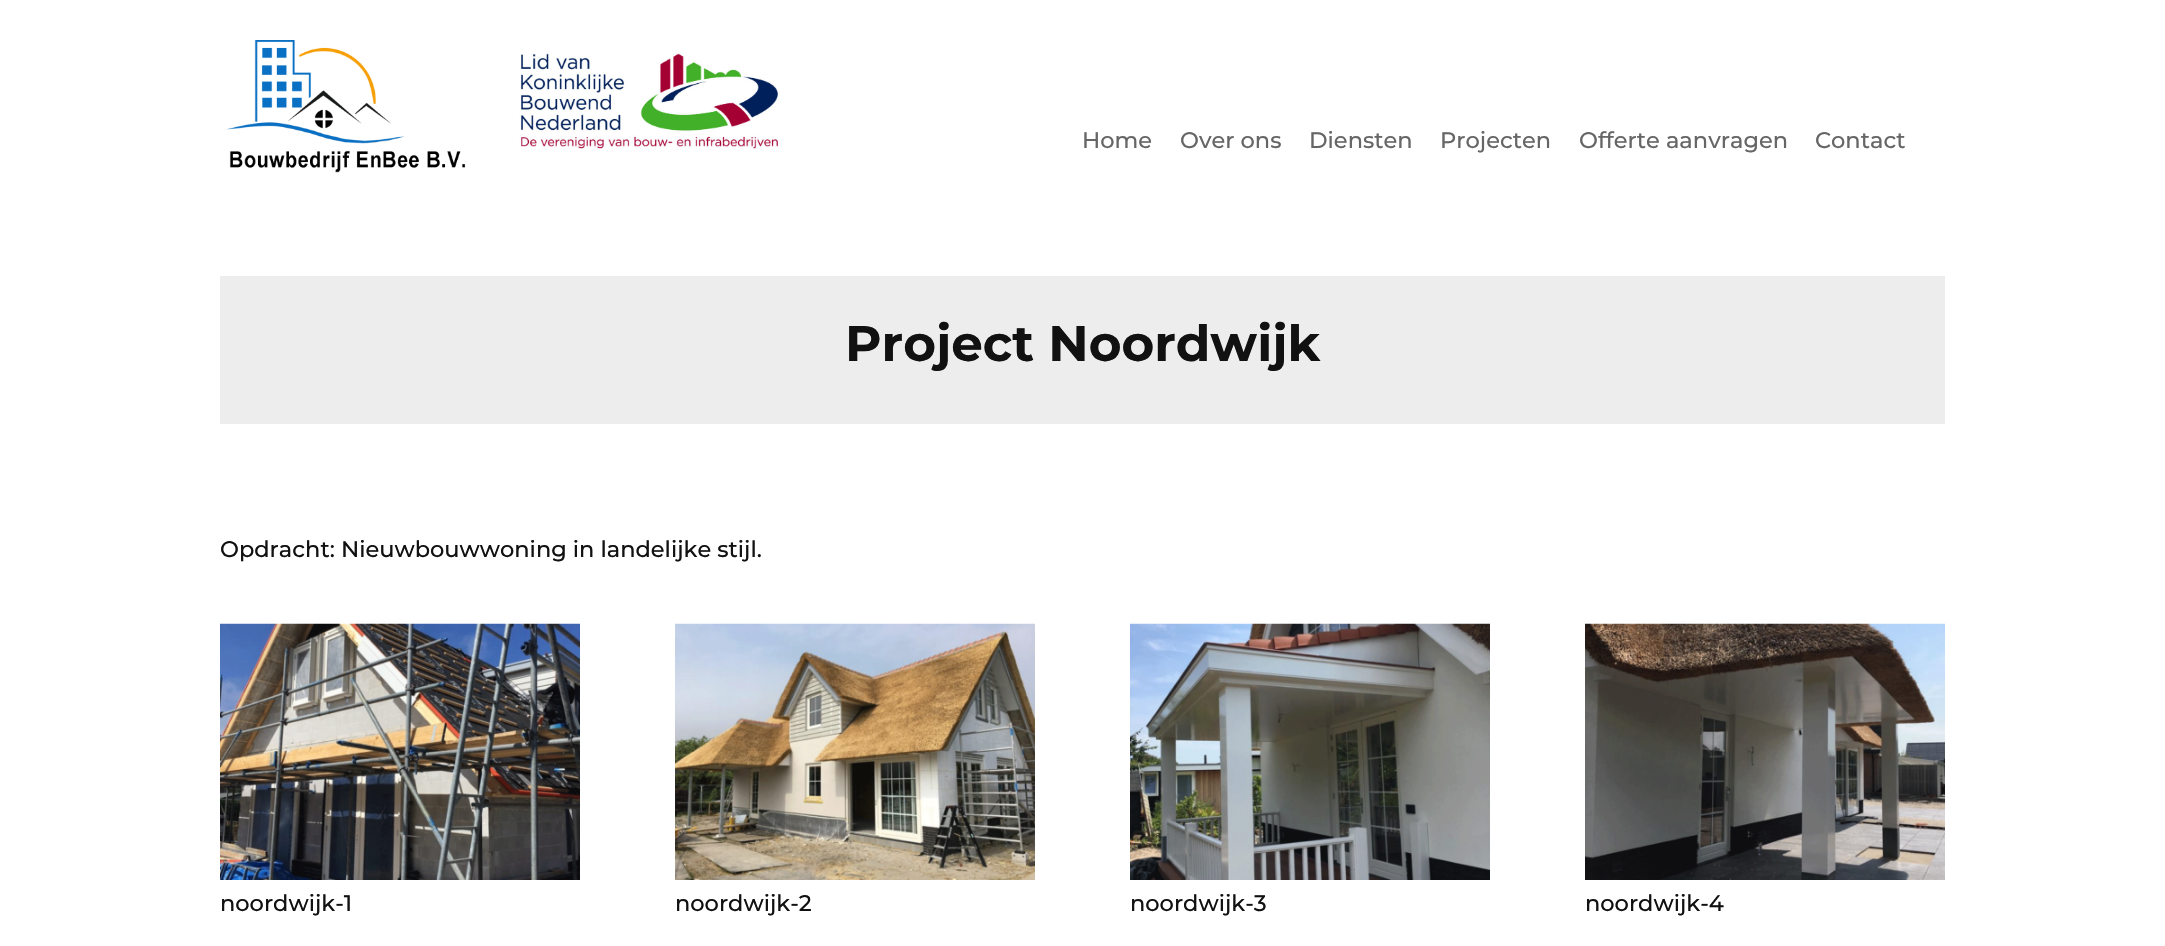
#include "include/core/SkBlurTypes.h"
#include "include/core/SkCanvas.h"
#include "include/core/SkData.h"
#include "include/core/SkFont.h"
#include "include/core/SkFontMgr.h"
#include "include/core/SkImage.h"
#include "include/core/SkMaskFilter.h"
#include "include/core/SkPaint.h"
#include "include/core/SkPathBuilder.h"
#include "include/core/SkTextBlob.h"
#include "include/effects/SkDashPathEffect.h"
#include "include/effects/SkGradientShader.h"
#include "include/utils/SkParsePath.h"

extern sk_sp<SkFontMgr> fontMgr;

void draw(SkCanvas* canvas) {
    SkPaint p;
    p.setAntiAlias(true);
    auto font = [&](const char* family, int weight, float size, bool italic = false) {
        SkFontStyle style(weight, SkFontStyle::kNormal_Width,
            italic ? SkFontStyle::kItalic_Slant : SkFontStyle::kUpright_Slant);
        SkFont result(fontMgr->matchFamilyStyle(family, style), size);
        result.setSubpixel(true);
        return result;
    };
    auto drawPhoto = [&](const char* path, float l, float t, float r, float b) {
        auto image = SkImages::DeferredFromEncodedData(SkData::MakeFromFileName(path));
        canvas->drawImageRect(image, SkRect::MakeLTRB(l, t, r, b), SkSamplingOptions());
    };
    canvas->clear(0xFFFFFFFF);
    drawPhoto("media/1.png", 225, 40, 466, 173);
    drawPhoto("media/2.png", 519, 52, 779, 149);
    auto font1 = font("Montserrat", 500, 22.5f);
    p.setColor(0xFF666666);
    {
        const struct { const char* s; float x, y; } items[] = {
            {"Home", 1082, 148},
            {"Over ons", 1180, 148},
            {"Diensten", 1309, 148},
            {"Projecten", 1440, 148},
            {"Offerte aanvragen", 1579, 148},
            {"Contact", 1815, 148},
        };
        for (auto [s, x, y] : items) {
            canvas->drawString(s, x, y, font1, p);
        }
    }
    p.setColor(0xFFEDEDED);
    canvas->drawRect(SkRect::MakeLTRB(220, 276, 1945, 424), p);
    auto font2 = font("Montserrat", 700, 50);
    p.setColor(0xFF111111);
    canvas->drawString("Project Noordwijk", 845, 361, font2, p);
    canvas->drawString("Opdracht: Nieuwbouwwoning in landelijke stijl.", 220, 557, font1, p);
    drawPhoto("media/3.png", 220, 623, 580, 880);
    canvas->drawString("noordwijk-1", 220, 911, font1, p);
    drawPhoto("media/4.png", 675, 623, 1035, 880);
    canvas->drawString("noordwijk-2", 675, 911, font1, p);
    drawPhoto("media/5.png", 1130, 623, 1490, 880);
    canvas->drawString("noordwijk-3", 1130, 911, font1, p);
    drawPhoto("media/6.png", 1585, 623, 1945, 880);
    canvas->drawString("noordwijk-4", 1585, 911, font1, p);
}
